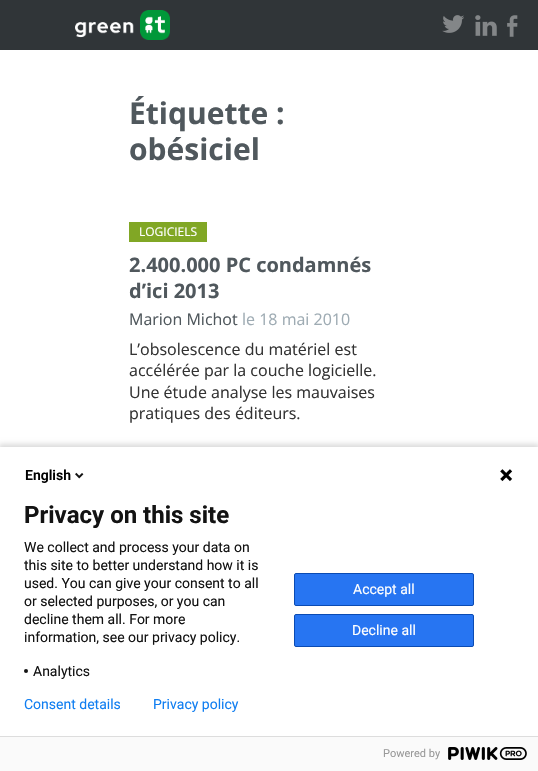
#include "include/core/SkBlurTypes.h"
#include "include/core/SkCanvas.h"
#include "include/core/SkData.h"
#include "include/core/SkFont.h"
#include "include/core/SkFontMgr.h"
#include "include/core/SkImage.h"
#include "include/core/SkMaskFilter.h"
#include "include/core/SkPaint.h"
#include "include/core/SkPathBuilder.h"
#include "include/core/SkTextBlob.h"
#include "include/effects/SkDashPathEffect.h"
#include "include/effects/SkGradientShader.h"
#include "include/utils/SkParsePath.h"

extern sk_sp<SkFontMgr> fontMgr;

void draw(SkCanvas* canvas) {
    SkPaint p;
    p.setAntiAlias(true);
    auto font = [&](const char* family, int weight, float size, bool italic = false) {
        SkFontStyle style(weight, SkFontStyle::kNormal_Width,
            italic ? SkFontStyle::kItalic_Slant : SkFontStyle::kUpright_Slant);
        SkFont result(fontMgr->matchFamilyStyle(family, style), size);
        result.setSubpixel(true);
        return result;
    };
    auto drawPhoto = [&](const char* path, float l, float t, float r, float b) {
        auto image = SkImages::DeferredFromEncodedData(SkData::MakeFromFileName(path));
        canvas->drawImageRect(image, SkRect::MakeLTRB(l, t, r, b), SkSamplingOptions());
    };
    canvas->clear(0xFF303538);
    drawPhoto("media/1.png", 75, 10, 170, 40);
    drawPhoto("media/2.png", 442, 15, 464, 33);
    drawPhoto("media/3.png", 475, 15, 497, 36);
    drawPhoto("media/4.png", 507, 15, 518, 37);
    p.setColor(0xFFFFFFFF);
    canvas->drawRect(SkRect::MakeLTRB(0, 50, 538, 447), p);
    auto font1 = font("Open Sans", 700, 30);
    p.setColor(0xFF50585D);
    canvas->drawString("Étiquette :", 129, 124, font1, p);
    canvas->drawString("obésiciel", 129, 160, font1, p);
    p.setColor(0xFF81A725);
    canvas->drawRect(SkRect::MakeLTRB(129, 222, 207, 242), p);
    auto font2 = font("Open Sans", 400, 12);
    p.setColor(0xFFFFFFFF);
    canvas->drawString("LOGICIELS", 139, 236, font2, p);
    auto font3 = font("Open Sans", 700, 20);
    p.setColor(0xFF50585D);
    canvas->drawString("2.400.000 PC condamnés", 129, 272, font3, p);
    canvas->drawString("d’ici 2013", 129, 298, font3, p);
    auto font4 = font("Open Sans", 400, 16);
    canvas->drawString("Marion Michot", 129, 325, font4, p);
    p.setColor(0xFF9EABB3);
    canvas->drawString("le 18 mai 2010", 242, 325, font4, p);
    p.setColor(0xFF333333);
    {
        const struct { const char* s; float x, y; } items[] = {
            {"L’obsolescence du matériel est", 129, 355},
            {"accélérée par la couche logicielle.", 129, 376},
            {"Une étude analyse les mauvaises", 129, 398},
            {"pratiques des éditeurs.", 129, 419},
        };
        for (auto [s, x, y] : items) {
            canvas->drawString(s, x, y, font4, p);
        }
    }
    p.setColor(0x24000000);
    p.setMaskFilter(SkMaskFilter::MakeBlur(kNormal_SkBlurStyle, 2.5f));
    canvas->drawRect(SkRect::MakeLTRB(-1, 444, 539, 770), p);
    p.setMaskFilter(nullptr);
    p.setColor(0xFFFFFFFF);
    canvas->drawRect(SkRect::MakeLTRB(0, 447, 538, 736), p);
    auto font5 = font("Roboto", 600, 14);
    p.setColor(0xFF000000);
    canvas->drawString("English", 25, 480, font5, p);
    drawPhoto("media/5.png", 75, 472, 84, 479);
    drawPhoto("media/6.png", 500, 469, 513, 482);
    auto font6 = font("Roboto", 700, 24);
    p.setColor(0xFF131313);
    canvas->drawString("Privacy on this site", 24, 523, font6, p);
    auto font7 = font("Roboto", 400, 14);
    {
        const struct { const char* s; float x, y; } items[] = {
            {"We collect and process your data on", 24, 552},
            {"this site to better understand how it is", 24, 570},
            {"used. You can give your consent to all", 24, 588},
            {"or selected purposes, or you can", 24, 606},
            {"decline them all. For more", 24, 624},
            {"information, see our privacy policy.", 24, 642},
        };
        for (auto [s, x, y] : items) {
            canvas->drawString(s, x, y, font7, p);
        }
    }
    canvas->drawCircle(26, 671, 2, p);
    canvas->drawString("Analytics", 33, 676, font7, p);
    p.setColor(0xFF2775F2);
    canvas->drawRoundRect(SkRect::MakeLTRB(294.5f, 573.5f, 473.5f, 605.5f), 1.5f, 1.5f, p);
    p.setStyle(SkPaint::kStroke_Style);
    p.setStrokeWidth(1);
    p.setColor(0xFF0B4BB3);
    canvas->drawRoundRect(SkRect::MakeLTRB(294.5f, 573.5f, 473.5f, 605.5f), 1.5f, 1.5f, p);
    p.setStyle(SkPaint::kFill_Style);
    p.setColor(0xFFFFFFFF);
    canvas->drawString("Accept all", 353, 594, font7, p);
    p.setColor(0xFF2775F2);
    canvas->drawRoundRect(SkRect::MakeLTRB(294.5f, 614.5f, 473.5f, 646.5f), 1.5f, 1.5f, p);
    p.setStyle(SkPaint::kStroke_Style);
    p.setColor(0xFF0B4BB3);
    canvas->drawRoundRect(SkRect::MakeLTRB(294.5f, 614.5f, 473.5f, 646.5f), 1.5f, 1.5f, p);
    p.setStyle(SkPaint::kFill_Style);
    p.setColor(0xFFFFFFFF);
    canvas->drawString("Decline all", 352, 635, font7, p);
    p.setColor(0xFF107EF1);
    canvas->drawString("Consent details", 24, 709, font7, p);
    canvas->drawString("Privacy policy", 153, 709, font7, p);
    p.setColor(0xFFFAFAFA);
    canvas->drawRect(SkRect::MakeLTRB(0, 737, 538, 771), p);
    p.setColor(0xFFDDDDDD);
    canvas->drawRect(SkRect::MakeLTRB(0, 736, 538, 737), p);
    auto font8 = font("Roboto", 400, 11);
    p.setColor(0xFF999999);
    canvas->drawString("Powered by", 383, 757, font8, p);
    drawPhoto("media/7.png", 448, 747, 527, 760);
}
